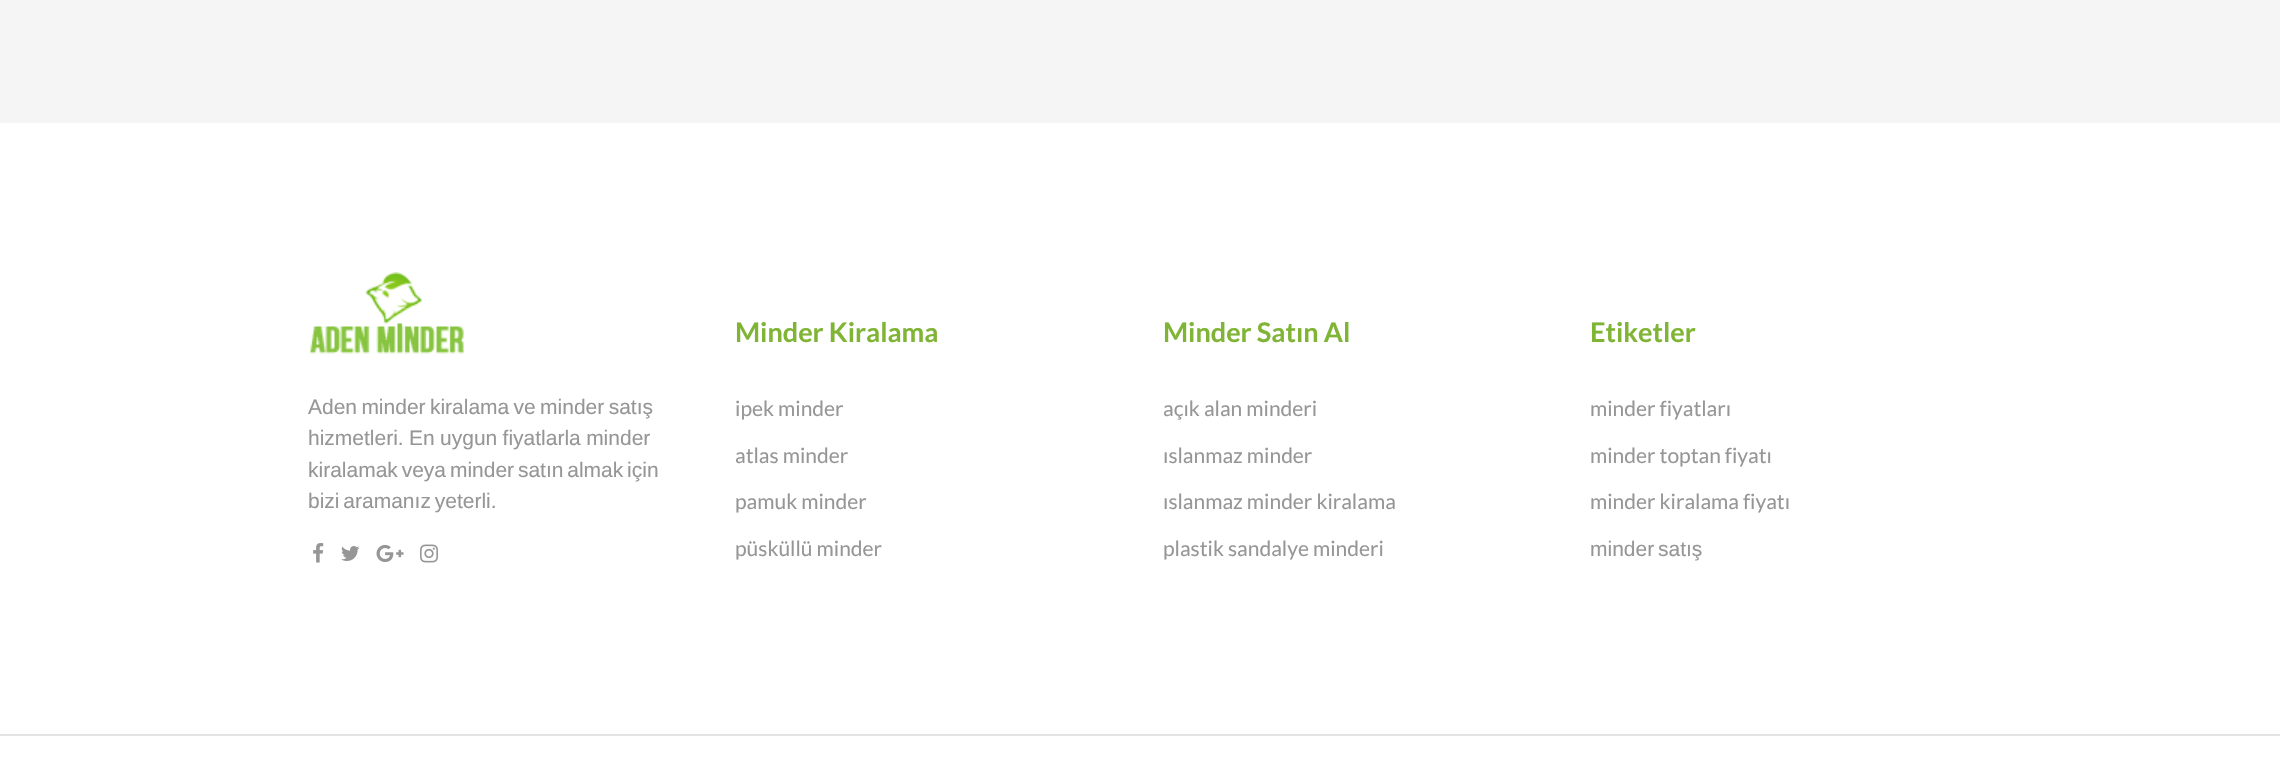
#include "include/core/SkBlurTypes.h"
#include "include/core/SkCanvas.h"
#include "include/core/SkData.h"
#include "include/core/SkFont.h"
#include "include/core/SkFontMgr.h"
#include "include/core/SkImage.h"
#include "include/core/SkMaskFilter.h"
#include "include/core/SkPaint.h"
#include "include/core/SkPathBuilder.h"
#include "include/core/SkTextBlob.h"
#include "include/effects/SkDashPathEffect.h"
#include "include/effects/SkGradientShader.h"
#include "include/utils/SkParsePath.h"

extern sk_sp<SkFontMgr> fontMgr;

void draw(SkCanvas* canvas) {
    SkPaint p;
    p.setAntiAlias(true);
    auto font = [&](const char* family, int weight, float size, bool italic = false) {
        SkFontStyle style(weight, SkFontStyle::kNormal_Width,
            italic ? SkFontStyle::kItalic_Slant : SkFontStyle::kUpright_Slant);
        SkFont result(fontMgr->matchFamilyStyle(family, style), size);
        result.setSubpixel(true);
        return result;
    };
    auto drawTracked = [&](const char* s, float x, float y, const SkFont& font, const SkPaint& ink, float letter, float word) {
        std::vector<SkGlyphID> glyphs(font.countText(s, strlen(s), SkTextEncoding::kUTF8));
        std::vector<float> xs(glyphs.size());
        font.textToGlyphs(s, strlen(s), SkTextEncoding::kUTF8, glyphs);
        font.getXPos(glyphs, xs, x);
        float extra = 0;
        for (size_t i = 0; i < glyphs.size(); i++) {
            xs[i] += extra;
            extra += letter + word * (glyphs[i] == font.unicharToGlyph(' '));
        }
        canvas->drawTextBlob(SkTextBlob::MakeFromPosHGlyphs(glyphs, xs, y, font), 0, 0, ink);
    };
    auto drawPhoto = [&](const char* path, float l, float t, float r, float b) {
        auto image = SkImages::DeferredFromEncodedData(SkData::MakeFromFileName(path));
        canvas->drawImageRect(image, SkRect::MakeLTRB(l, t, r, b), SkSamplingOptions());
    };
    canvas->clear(0xFFF5F5F5);
    p.setColor(0xFFFFFFFF);
    canvas->drawRect(SkRect::MakeLTRB(0, 123, 2280, 777), p);
    drawPhoto("media/1.png", 310, 272, 464, 354);
    auto font1 = font("Liberation Sans", 400, 21);
    p.setColor(0xFF969696);
    drawTracked("Aden minder kiralama ve minder satış", 308, 414, font1, p, 0, -1.5f);
    drawTracked("hizmetleri. En uygun fiyatlarla minder", 308, 445, font1, p, 0, -0.5f);
    drawTracked("kiralamak veya minder satın almak için", 308, 477, font1, p, 0, -2);
    drawTracked("bizi aramanız yeterli.", 308, 508, font1, p, 0, -2);
    drawPhoto("media/2.png", 313, 543, 324, 563);
    drawPhoto("media/3.png", 341, 546, 360, 561);
    drawPhoto("media/4.png", 376, 544, 404, 563);
    drawPhoto("media/5.png", 420, 544, 438, 563);
    auto font2 = font("Lato", 700, 27);
    p.setColor(0xFF80B435);
    canvas->drawString("Minder Kiralama", 735, 342, font2, p);
    auto font3 = font("Lato", 400, 21);
    p.setColor(0xFF969696);
    {
        const struct { const char* s; float x, y; } items[] = {
            {"ipek minder", 735, 416},
            {"atlas minder", 735, 463},
            {"pamuk minder", 735, 509},
            {"püsküllü minder", 735, 556},
        };
        for (auto [s, x, y] : items) {
            canvas->drawString(s, x, y, font3, p);
        }
    }
    p.setColor(0xFF80B435);
    canvas->drawString("Minder Satın Al", 1163, 342, font2, p);
    p.setColor(0xFF969696);
    {
        const struct { const char* s; float x, y; } items[] = {
            {"açık alan minderi", 1163, 416},
            {"ıslanmaz minder", 1163, 463},
            {"ıslanmaz minder kiralama", 1163, 509},
            {"plastik sandalye minderi", 1163, 556},
        };
        for (auto [s, x, y] : items) {
            canvas->drawString(s, x, y, font3, p);
        }
    }
    p.setColor(0xFF80B435);
    canvas->drawString("Etiketler", 1590, 342, font2, p);
    p.setColor(0xFF969696);
    {
        const struct { const char* s; float x, y; } items[] = {
            {"minder fiyatları", 1590, 416},
            {"minder toptan fiyatı", 1590, 463},
            {"minder kiralama fiyatı", 1590, 509},
        };
        for (auto [s, x, y] : items) {
            canvas->drawString(s, x, y, font3, p);
        }
    }
    drawTracked("minder satış", 1590, 556, font1, p, 0, -2);
    p.setColor(0xFFE3E3E3);
    canvas->drawRect(SkRect::MakeLTRB(0, 734, 2280, 736), p);
}
